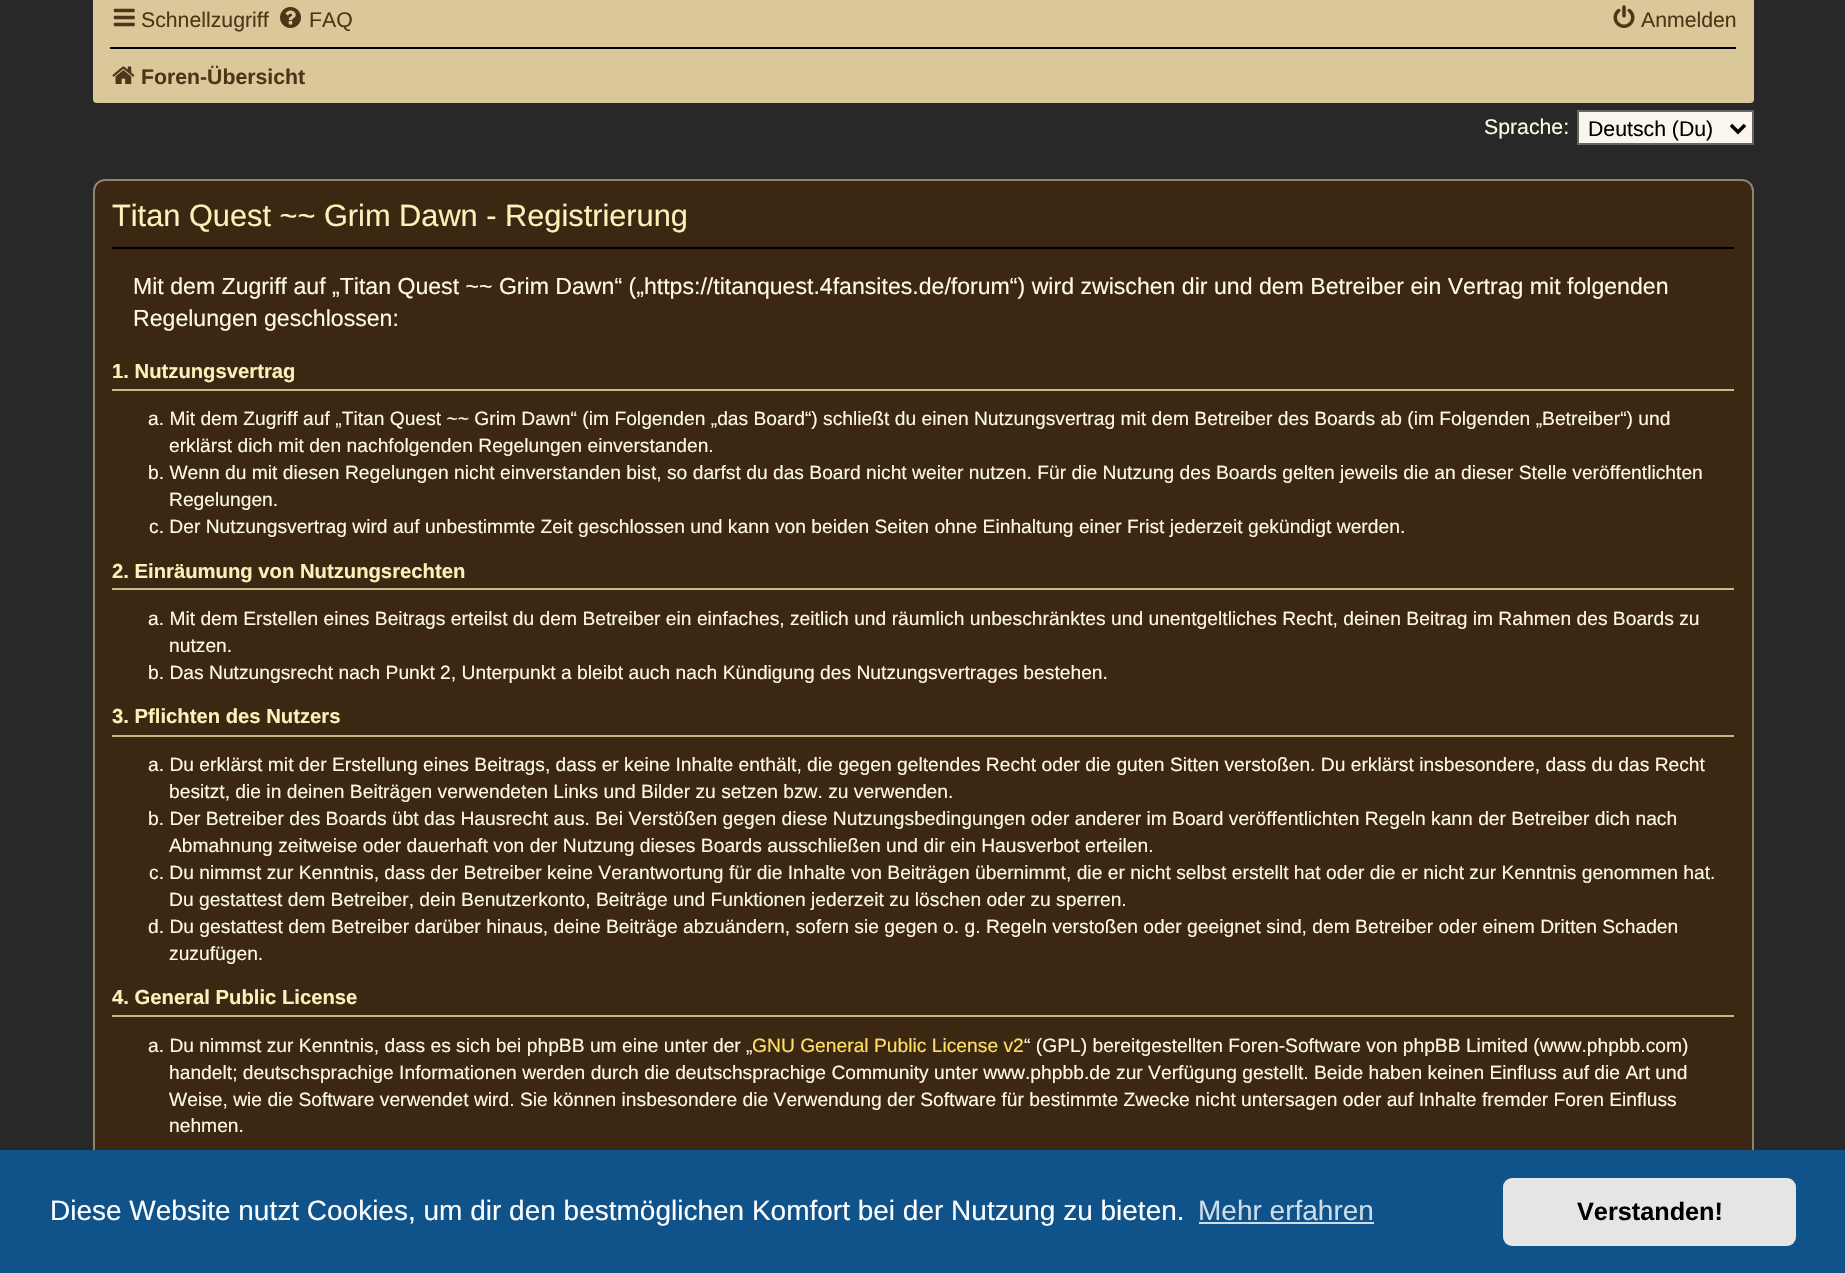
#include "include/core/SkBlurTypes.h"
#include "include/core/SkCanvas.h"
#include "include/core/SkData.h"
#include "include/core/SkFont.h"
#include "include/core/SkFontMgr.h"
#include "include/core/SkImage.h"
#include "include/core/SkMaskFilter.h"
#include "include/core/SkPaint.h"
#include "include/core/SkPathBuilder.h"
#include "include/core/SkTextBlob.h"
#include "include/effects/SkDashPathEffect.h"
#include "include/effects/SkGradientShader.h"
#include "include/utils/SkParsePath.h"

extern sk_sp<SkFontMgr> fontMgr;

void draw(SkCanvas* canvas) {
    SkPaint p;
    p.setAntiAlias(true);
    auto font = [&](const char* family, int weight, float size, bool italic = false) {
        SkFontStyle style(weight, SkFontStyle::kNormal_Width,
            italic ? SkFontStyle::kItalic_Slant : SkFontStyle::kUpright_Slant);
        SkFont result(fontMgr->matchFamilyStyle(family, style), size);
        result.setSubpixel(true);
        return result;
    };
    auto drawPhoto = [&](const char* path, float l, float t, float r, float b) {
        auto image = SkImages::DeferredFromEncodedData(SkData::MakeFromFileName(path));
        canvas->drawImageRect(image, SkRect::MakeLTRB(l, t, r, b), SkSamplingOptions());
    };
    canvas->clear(0xFF282828);
    p.setColor(0xFFDAC89A);
    canvas->drawRoundRect(SkRect::MakeLTRB(93, -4, 1754, 103), 4, 4, p);
    drawPhoto("media/1.png", 113, 8, 135, 27);
    auto font1 = font("Liberation Sans", 400, 21.25f);
    p.setColor(0xFF4E3518);
    canvas->drawString("Schnellzugriff", 141, 27, font1, p);
    drawPhoto("media/2.png", 280, 7, 301, 28);
    canvas->drawString("FAQ", 309, 27, font1, p);
    drawPhoto("media/3.png", 1613, 5, 1635, 28);
    canvas->drawString("Anmelden", 1641, 27, font1, p);
    p.setColor(0xFF000000);
    canvas->drawRect(SkRect::MakeLTRB(110, 47, 1736, 49), p);
    drawPhoto("media/4.png", 112, 66, 135, 84);
    auto font2 = font("Liberation Sans", 700, 21.25f);
    p.setColor(0xFF4E3518);
    canvas->drawString("Foren-Übersicht", 141, 84, font2, p);
    p.setColor(0xFFFFF9E6);
    canvas->drawString("Sprache:", 1484, 134, font1, p);
    p.setColor(0xFFFAF6ED);
    canvas->drawRect(SkRect::MakeLTRB(1578, 111, 1753, 144), p);
    p.setStyle(SkPaint::kStroke_Style);
    p.setStrokeWidth(2);
    p.setColor(0xFF666666);
    canvas->drawRect(SkRect::MakeLTRB(1578, 111, 1753, 144), p);
    p.setStrokeWidth(3.5f);
    p.setColor(0xFF000000);
    canvas->drawPath(SkPathBuilder().moveTo(1731, 125).lineTo(1738, 132).lineTo(1745, 125).detach(), p);
    p.setStyle(SkPaint::kFill_Style);
    canvas->drawString("Deutsch (Du)", 1588, 136, font1, p);
    p.setColor(0xFF3B2712);
    canvas->drawRoundRect(SkRect::MakeLTRB(94, 180, 1753, 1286), 11, 11, p);
    p.setStyle(SkPaint::kStroke_Style);
    p.setStrokeWidth(2);
    p.setColor(0xFF8F846B);
    canvas->drawRoundRect(SkRect::MakeLTRB(94, 180, 1753, 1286), 11, 11, p);
    p.setStyle(SkPaint::kFill_Style);
    p.setColor(0xFF000000);
    canvas->drawRect(SkRect::MakeLTRB(112, 247, 1734, 249), p);
    auto font3 = font("Liberation Sans", 400, 30.75f);
    p.setColor(0xFFFFF0BA);
    canvas->drawString("Titan Quest ~~ Grim Dawn - Registrierung", 112, 226, font3, p);
    auto font4 = font("Liberation Sans", 400, 23.1f);
    p.setColor(0xFFFFF9E6);
    canvas->drawString("Mit dem Zugriff auf „Titan Quest ~~ Grim Dawn“ („https://titanquest.4fansites.de/forum“) wird zwischen dir und dem Betreiber ein Vertrag mit folgenden", 133, 294, font4, p);
    canvas->drawString("Regelungen geschlossen:", 133, 326, font4, p);
    p.setColor(0xFFCDB889);
    canvas->drawRect(SkRect::MakeLTRB(112, 389, 1734, 391), p);
    auto font5 = font("Liberation Sans", 700, 20.25f);
    p.setColor(0xFFFFF0BA);
    canvas->drawString("1. Nutzungsvertrag", 112, 378, font5, p);
    auto font6 = font("Liberation Sans", 400, 19.25f);
    p.setColor(0xFFFFF9E6);
    {
        const struct { const char* s; float x, y; } items[] = {
            {"a. Mit dem Zugriff auf „Titan Quest ~~ Grim Dawn“ (im Folgenden „das Board“) schließt du einen Nutzungsvertrag mit dem Betreiber des Boards ab (im Folgenden „Betreiber“) und", 148, 425},
            {"erklärst dich mit den nachfolgenden Regelungen einverstanden.", 169, 452},
            {"b. Wenn du mit diesen Regelungen nicht einverstanden bist, so darfst du das Board nicht weiter nutzen. Für die Nutzung des Boards gelten jeweils die an dieser Stelle veröffentlichten", 148, 479},
            {"Regelungen.", 169, 506},
            {"c. Der Nutzungsvertrag wird auf unbestimmte Zeit geschlossen und kann von beiden Seiten ohne Einhaltung einer Frist jederzeit gekündigt werden.", 149, 533},
        };
        for (auto [s, x, y] : items) {
            canvas->drawString(s, x, y, font6, p);
        }
    }
    p.setColor(0xFFCDB889);
    canvas->drawRect(SkRect::MakeLTRB(112, 588, 1734, 590), p);
    p.setColor(0xFFFFF0BA);
    canvas->drawString("2. Einräumung von Nutzungsrechten", 112, 578, font5, p);
    p.setColor(0xFFFFF9E6);
    {
        const struct { const char* s; float x, y; } items[] = {
            {"a. Mit dem Erstellen eines Beitrags erteilst du dem Betreiber ein einfaches, zeitlich und räumlich unbeschränktes und unentgeltliches Recht, deinen Beitrag im Rahmen des Boards zu", 148, 625},
            {"nutzen.", 169, 652},
            {"b. Das Nutzungsrecht nach Punkt 2, Unterpunkt a bleibt auch nach Kündigung des Nutzungsvertrages bestehen.", 148, 679},
        };
        for (auto [s, x, y] : items) {
            canvas->drawString(s, x, y, font6, p);
        }
    }
    p.setColor(0xFFCDB889);
    canvas->drawRect(SkRect::MakeLTRB(112, 735, 1734, 737), p);
    p.setColor(0xFFFFF0BA);
    canvas->drawString("3. Pflichten des Nutzers", 112, 723, font5, p);
    p.setColor(0xFFFFF9E6);
    {
        const struct { const char* s; float x, y; } items[] = {
            {"a. Du erklärst mit der Erstellung eines Beitrags, dass er keine Inhalte enthält, die gegen geltendes Recht oder die guten Sitten verstoßen. Du erklärst insbesondere, dass du das Recht", 148, 771},
            {"besitzt, die in deinen Beiträgen verwendeten Links und Bilder zu setzen bzw. zu verwenden.", 169, 798},
            {"b. Der Betreiber des Boards übt das Hausrecht aus. Bei Verstößen gegen diese Nutzungsbedingungen oder anderer im Board veröffentlichten Regeln kann der Betreiber dich nach", 148, 825},
            {"Abmahnung zeitweise oder dauerhaft von der Nutzung dieses Boards ausschließen und dir ein Hausverbot erteilen.", 169, 852},
            {"c. Du nimmst zur Kenntnis, dass der Betreiber keine Verantwortung für die Inhalte von Beiträgen übernimmt, die er nicht selbst erstellt hat oder die er nicht zur Kenntnis genommen hat.", 149, 879},
            {"Du gestattest dem Betreiber, dein Benutzerkonto, Beiträge und Funktionen jederzeit zu löschen oder zu sperren.", 169, 906},
            {"d. Du gestattest dem Betreiber darüber hinaus, deine Beiträge abzuändern, sofern sie gegen o. g. Regeln verstoßen oder geeignet sind, dem Betreiber oder einem Dritten Schaden", 148, 933},
            {"zuzufügen.", 169, 960},
        };
        for (auto [s, x, y] : items) {
            canvas->drawString(s, x, y, font6, p);
        }
    }
    p.setColor(0xFFCDB889);
    canvas->drawRect(SkRect::MakeLTRB(112, 1015, 1734, 1017), p);
    p.setColor(0xFFFFF0BA);
    canvas->drawString("4. General Public License", 112, 1004, font5, p);
    p.setColor(0xFFFFF9E6);
    canvas->drawString("a. Du nimmst zur Kenntnis, dass es sich bei phpBB um eine unter der „", 148, 1052, font6, p);
    p.setColor(0xFFFFE065);
    canvas->drawString("GNU General Public License v2", 752, 1052, font6, p);
    p.setColor(0xFFFFF9E6);
    {
        const struct { const char* s; float x, y; } items[] = {
            {"“ (GPL) bereitgestellten Foren-Software von phpBB Limited (www.phpbb.com)", 1024, 1052},
            {"handelt; deutschsprachige Informationen werden durch die deutschsprachige Community unter www.phpbb.de zur Verfügung gestellt. Beide haben keinen Einfluss auf die Art und", 169, 1079},
            {"Weise, wie die Software verwendet wird. Sie können insbesondere die Verwendung der Software für bestimmte Zwecke nicht untersagen oder auf Inhalte fremder Foren Einfluss", 169, 1106},
            {"nehmen.", 169, 1132},
        };
        for (auto [s, x, y] : items) {
            canvas->drawString(s, x, y, font6, p);
        }
    }
    p.setColor(0xFF0F538A);
    canvas->drawRect(SkRect::MakeLTRB(0, 1150, 1845, 1273), p);
    auto font7 = font("Liberation Sans", 400, 28);
    p.setColor(0xFFFFFFFF);
    canvas->drawString("Diese Website nutzt Cookies, um dir den bestmöglichen Komfort bei der Nutzung zu bieten.", 50, 1220, font7, p);
    p.setColor(0xFFCFDDE8);
    canvas->drawString("Mehr erfahren", 1198, 1220, font7, p);
    canvas->drawRect(SkRect::MakeLTRB(1199, 1222, 1374, 1224), p);
    p.setColor(0xFFE5E5E5);
    canvas->drawRoundRect(SkRect::MakeLTRB(1503, 1178, 1796, 1246), 9, 9, p);
    auto font8 = font("Liberation Sans", 700, 25.25f);
    p.setColor(0xFF000000);
    canvas->drawString("Verstanden!", 1577, 1220, font8, p);
}
